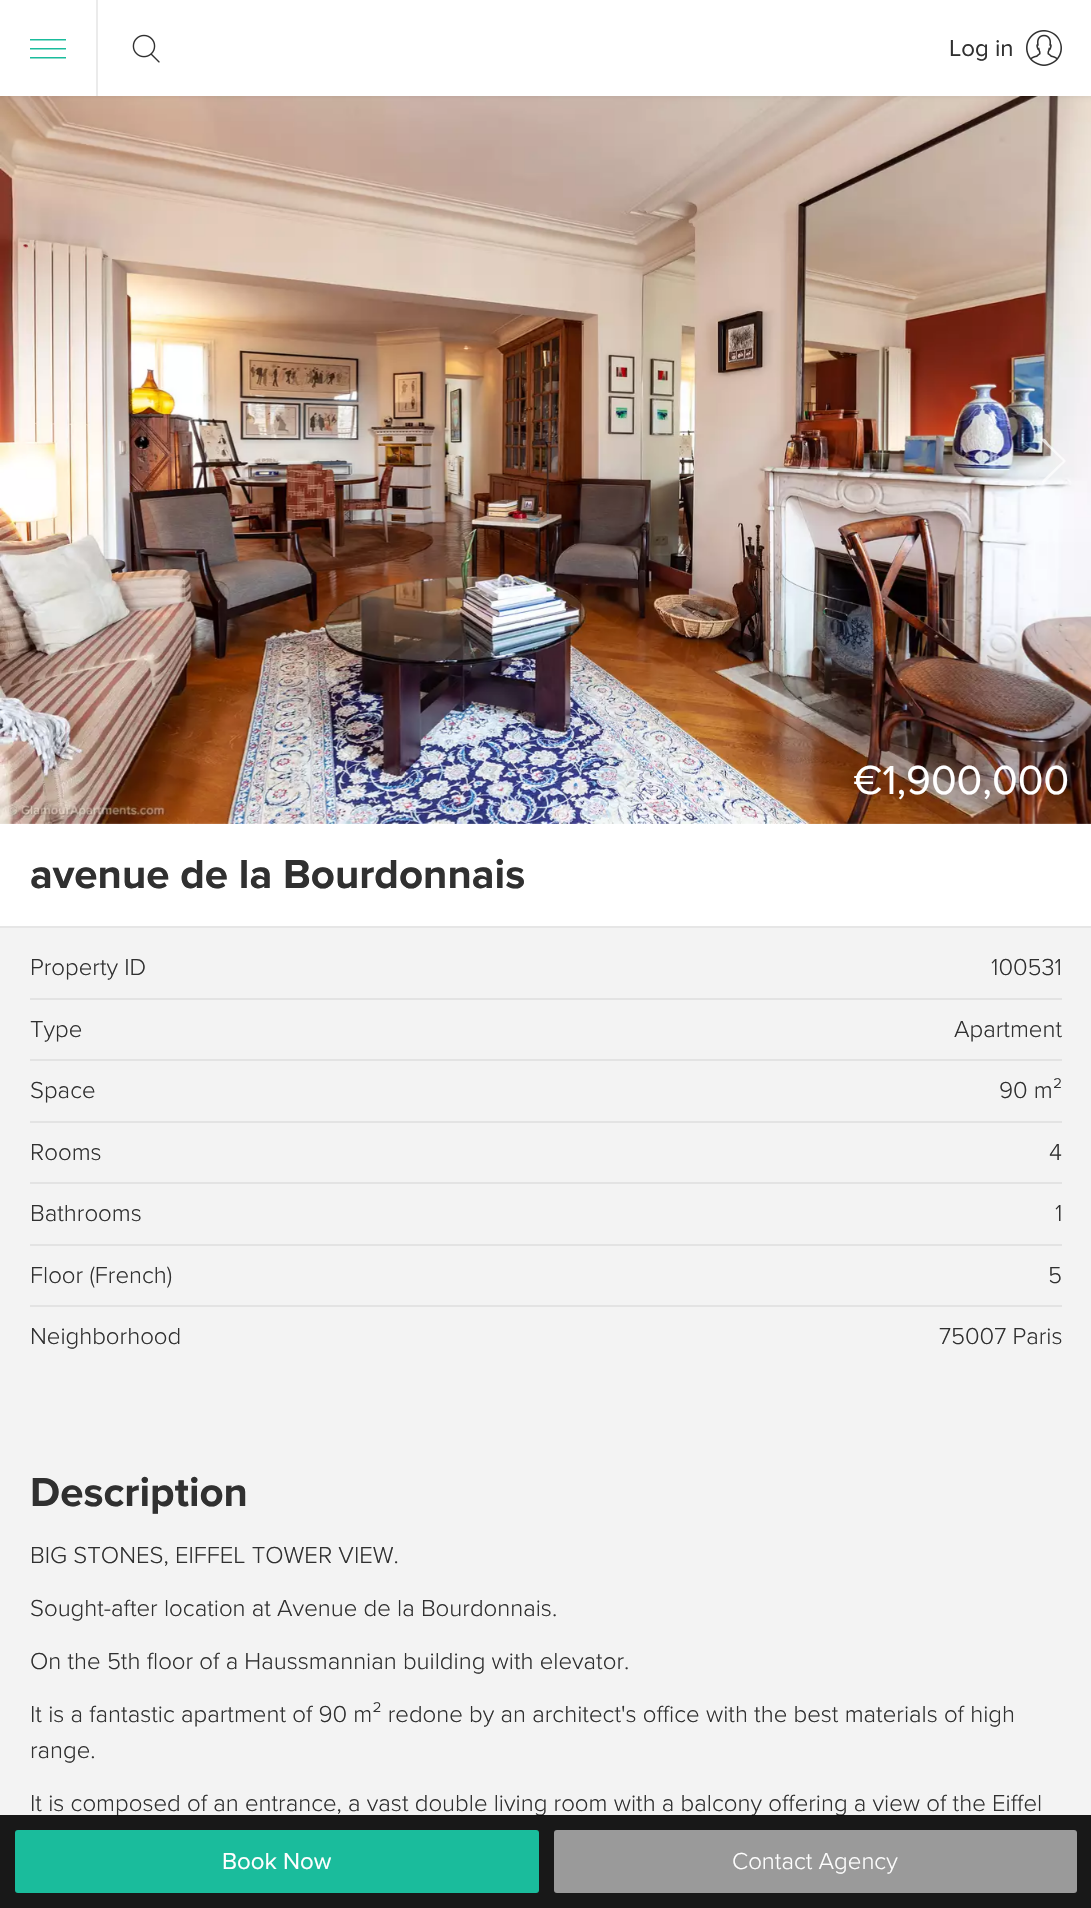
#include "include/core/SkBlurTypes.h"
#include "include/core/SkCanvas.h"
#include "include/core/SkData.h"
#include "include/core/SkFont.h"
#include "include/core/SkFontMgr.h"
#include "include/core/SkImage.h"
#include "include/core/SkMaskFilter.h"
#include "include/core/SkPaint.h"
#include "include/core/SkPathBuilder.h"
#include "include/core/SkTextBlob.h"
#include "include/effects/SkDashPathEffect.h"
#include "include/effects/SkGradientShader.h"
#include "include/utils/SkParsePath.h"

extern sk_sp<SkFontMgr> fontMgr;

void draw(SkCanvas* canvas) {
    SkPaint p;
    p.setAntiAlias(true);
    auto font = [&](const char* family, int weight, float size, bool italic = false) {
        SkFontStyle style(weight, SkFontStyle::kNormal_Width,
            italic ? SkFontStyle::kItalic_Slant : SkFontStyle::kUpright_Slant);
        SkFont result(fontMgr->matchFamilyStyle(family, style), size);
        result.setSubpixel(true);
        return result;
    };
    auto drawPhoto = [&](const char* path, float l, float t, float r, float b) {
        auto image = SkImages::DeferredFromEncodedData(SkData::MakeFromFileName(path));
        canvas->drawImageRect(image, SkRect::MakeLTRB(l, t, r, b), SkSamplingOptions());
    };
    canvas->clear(0xFFF3F3F3);
    p.setColor(0xFFFFFFFF);
    canvas->drawRect(SkRect::MakeLTRB(0, 822, 1091, 926), p);
    drawPhoto("media/3.png", 0, 96, 1091, 824);
    p.setColor(0x0D000000);
    p.setMaskFilter(SkMaskFilter::MakeBlur(kNormal_SkBlurStyle, 1.5f));
    canvas->drawRect(SkRect::MakeLTRB(0, 2, 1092, 98), p);
    p.setMaskFilter(nullptr);
    p.setColor(0xFFFFFFFF);
    canvas->drawRect(SkRect::MakeLTRB(0, 0, 1091, 96), p);
    p.setColor(0xFF1ABC9C);
    canvas->drawPath(SkPathBuilder().moveTo(30, 49.5f).lineTo(30, 48).lineTo(66, 48).lineTo(66, 49.5f).close().moveTo(30, 40.5f).lineTo(30, 39).lineTo(66, 39).lineTo(66, 40.5f).close().moveTo(30, 58.5f).lineTo(30, 57).lineTo(66, 57).lineTo(66, 58.5f).close().detach(), p);
    p.setColor(0xFFEBEBEB);
    canvas->drawRect(SkRect::MakeLTRB(96, 0, 98, 96), p);
    drawPhoto("media/1.png", 132, 34, 160, 63);
    auto font1 = font("Proxima Nova", 400, 24);
    p.setColor(0xFF303030);
    canvas->drawString("Log in", 949, 56, font1, p);
    drawPhoto("media/2.png", 1026, 30, 1062, 66);
    p.setColor(0x1AFFFFFF);
    canvas->drawRect(SkRect::MakeLTRB(43, 443, 46, 446), p);
    p.setColor(0xB3FFFFFF);
    canvas->drawPath(SkPathBuilder().moveTo(1044, 483).cubicTo(1044, 484, 1042, 483, 1042, 482).cubicTo(1041, 481, 1059, 465, 1063, 461).lineTo(1042, 441).lineTo(1042, 439).cubicTo(1044, 437, 1048, 442, 1048, 443).lineTo(1062, 457).cubicTo(1067, 462, 1067, 460, 1062, 465).close().detach(), p);
    auto font2 = font("Proxima Nova", 400, 42);
    p.setColor(0xFFFFFFFF);
    canvas->drawString("€1,900,000", 853, 794, font2, p);
    p.setColor(0xFFE6E6E6);
    canvas->drawRect(SkRect::MakeLTRB(0, 926, 1091, 928), p);
    auto font3 = font("Proxima Nova", 700, 42);
    p.setColor(0xFF303030);
    canvas->drawString("avenue de la Bourdonnais", 30, 888, font3, p);
    auto font4 = font("Proxima Nova", 300, 24);
    canvas->drawString("Property ID", 30, 975, font4, p);
    canvas->drawString("100531", 991, 975, font4, p);
    p.setColor(0xFFE3E3E3);
    canvas->drawRect(SkRect::MakeLTRB(30, 998, 1062, 1000), p);
    p.setColor(0xFF303030);
    canvas->drawString("Type", 30, 1037, font4, p);
    canvas->drawString("Apartment", 954, 1037, font4, p);
    p.setColor(0xFFE3E3E3);
    canvas->drawRect(SkRect::MakeLTRB(30, 1059, 1062, 1061), p);
    p.setColor(0xFF303030);
    canvas->drawString("Space", 30, 1098, font4, p);
    canvas->drawString("90 m²", 999, 1098, font4, p);
    p.setColor(0xFFE3E3E3);
    canvas->drawRect(SkRect::MakeLTRB(30, 1121, 1062, 1123), p);
    p.setColor(0xFF303030);
    canvas->drawString("Rooms", 30, 1160, font4, p);
    canvas->drawString("4", 1049, 1160, font4, p);
    p.setColor(0xFFE3E3E3);
    canvas->drawRect(SkRect::MakeLTRB(30, 1182, 1062, 1184), p);
    p.setColor(0xFF303030);
    canvas->drawString("Bathrooms", 30, 1221, font4, p);
    canvas->drawString("1", 1055, 1221, font4, p);
    p.setColor(0xFFE3E3E3);
    canvas->drawRect(SkRect::MakeLTRB(30, 1244, 1062, 1246), p);
    p.setColor(0xFF303030);
    canvas->drawString("Floor (French)", 30, 1283, font4, p);
    canvas->drawString("5", 1048, 1283, font4, p);
    p.setColor(0xFFE3E3E3);
    canvas->drawRect(SkRect::MakeLTRB(30, 1305, 1062, 1307), p);
    p.setColor(0xFF303030);
    canvas->drawString("Neighborhood", 30, 1344, font4, p);
    canvas->drawString("75007 Paris", 939, 1344, font4, p);
    canvas->drawString("Description", 30, 1506, font3, p);
    {
        const struct { const char* s; float x, y; } items[] = {
            {"BIG STONES, EIFFEL TOWER VIEW.", 30, 1563},
            {"Sought-after location at Avenue de la Bourdonnais.", 30, 1616},
            {"On the 5th floor of a Haussmannian building with elevator.", 30, 1669},
            {"It is a fantastic apartment of 90 m² redone by an architect's office with the best materials of high", 30, 1722},
            {"range.", 30, 1758},
            {"It is composed of an entrance, a vast double living room with a balcony offering a view of the Eiffel", 30, 1811},
        };
        for (auto [s, x, y] : items) {
            canvas->drawString(s, x, y, font4, p);
        }
    }
    p.setColor(0xE6000000);
    canvas->drawRect(SkRect::MakeLTRB(0, 1815, 1091, 1908), p);
    p.setColor(0xFF1ABC9C);
    canvas->drawRoundRect(SkRect::MakeLTRB(15, 1830, 539, 1893), 3, 3, p);
    p.setColor(0xFFFFFFFF);
    canvas->drawString("Book Now", 222, 1869, font1, p);
    p.setColor(0xFF9A9A9A);
    canvas->drawRoundRect(SkRect::MakeLTRB(554, 1830, 1077, 1893), 3, 3, p);
    p.setColor(0xFFFFFFFF);
    canvas->drawString("Contact Agency", 732, 1869, font4, p);
}
